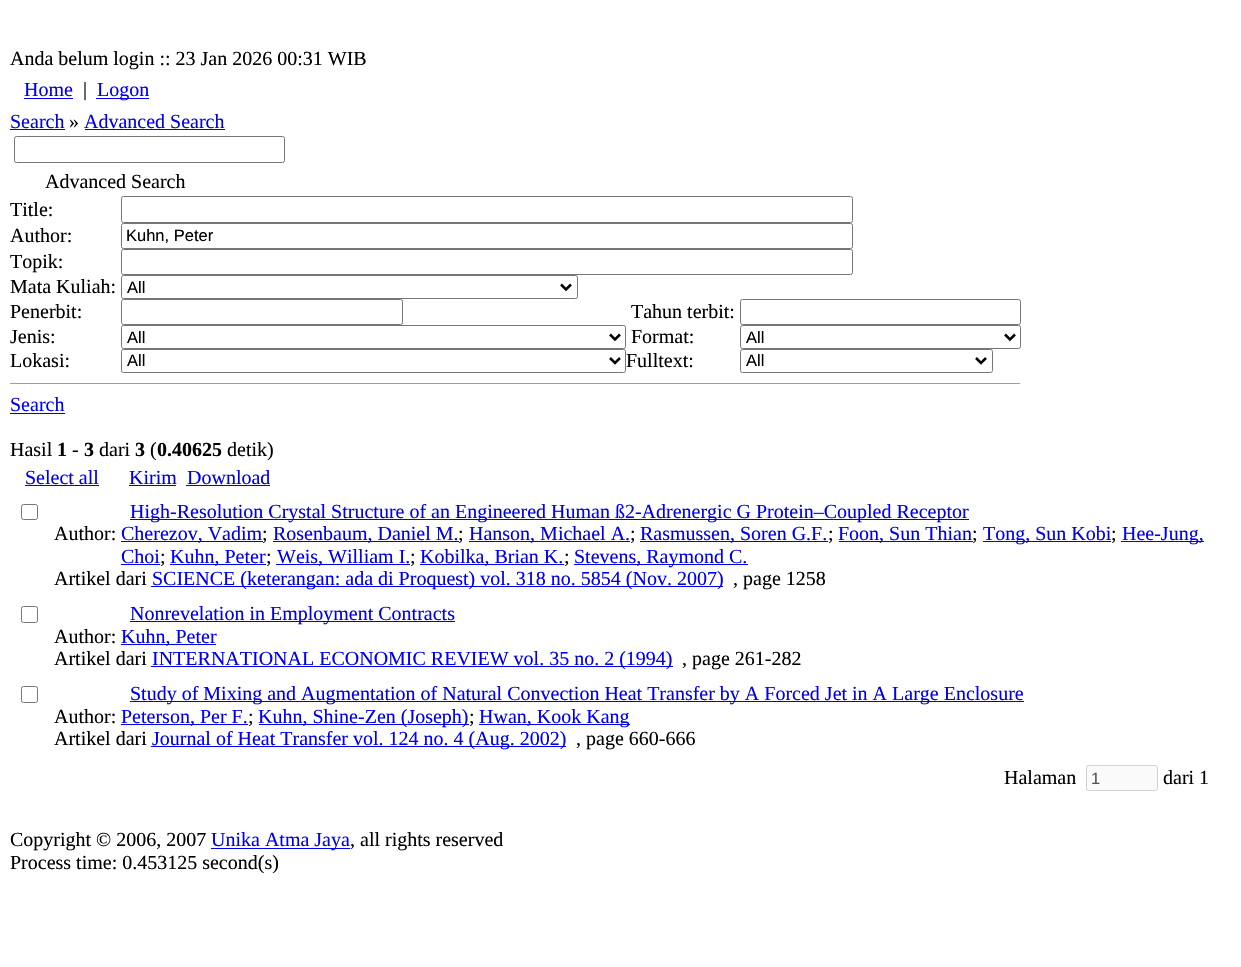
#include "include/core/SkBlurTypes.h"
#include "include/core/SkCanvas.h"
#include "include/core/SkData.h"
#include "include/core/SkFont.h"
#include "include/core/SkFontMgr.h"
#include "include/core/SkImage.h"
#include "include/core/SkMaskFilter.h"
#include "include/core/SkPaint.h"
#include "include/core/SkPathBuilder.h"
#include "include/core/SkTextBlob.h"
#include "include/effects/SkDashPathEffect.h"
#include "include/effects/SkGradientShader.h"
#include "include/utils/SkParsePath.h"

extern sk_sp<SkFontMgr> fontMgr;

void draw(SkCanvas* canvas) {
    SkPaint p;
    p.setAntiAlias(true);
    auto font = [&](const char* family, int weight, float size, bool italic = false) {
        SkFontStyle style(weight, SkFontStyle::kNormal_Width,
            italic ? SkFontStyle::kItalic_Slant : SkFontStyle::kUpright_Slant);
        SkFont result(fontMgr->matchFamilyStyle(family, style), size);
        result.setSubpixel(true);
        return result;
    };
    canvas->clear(0xFFFFFFFF);
    auto font1 = font("Liberation Serif", 400, 20);
    p.setColor(0xFF000000);
    canvas->drawString("Anda belum login :: 23 Jan 2026 00:31 WIB", 10, 65, font1, p);
    p.setColor(0xFF0000EE);
    canvas->drawString("Home", 24, 96, font1, p);
    canvas->drawRect(SkRect::MakeLTRB(24, 98, 73, 99), p);
    p.setColor(0xFF000000);
    canvas->drawString("|", 83, 96, font1, p);
    p.setColor(0xFF0000EE);
    canvas->drawRect(SkRect::MakeLTRB(96, 98, 149, 99), p);
    canvas->drawString("Logon", 97, 96, font1, p);
    canvas->drawString("Search", 10, 128, font1, p);
    canvas->drawRect(SkRect::MakeLTRB(10, 129, 65, 130), p);
    p.setColor(0xFF000000);
    canvas->drawString("»", 69, 128, font1, p);
    p.setColor(0xFF0000EE);
    canvas->drawString("Advanced Search", 84, 128, font1, p);
    canvas->drawRect(SkRect::MakeLTRB(85, 129, 225, 130), p);
    p.setStyle(SkPaint::kStroke_Style);
    p.setStrokeWidth(1);
    p.setColor(0xFF767676);
    canvas->drawRoundRect(SkRect::MakeLTRB(14.5f, 136.5f, 284.5f, 162.5f), 2, 2, p);
    p.setStyle(SkPaint::kFill_Style);
    p.setColor(0xFF000000);
    canvas->drawString("Advanced Search", 45, 188, font1, p);
    canvas->drawString("Title:", 10, 216, font1, p);
    p.setStyle(SkPaint::kStroke_Style);
    p.setColor(0xFF767676);
    canvas->drawRoundRect(SkRect::MakeLTRB(121.5f, 196.5f, 852.5f, 222.5f), 2, 2, p);
    p.setStyle(SkPaint::kFill_Style);
    p.setColor(0xFF000000);
    canvas->drawString("Author:", 10, 242, font1, p);
    p.setStyle(SkPaint::kStroke_Style);
    p.setColor(0xFF767676);
    canvas->drawRoundRect(SkRect::MakeLTRB(121.5f, 223.5f, 852.5f, 248.5f), 2, 2, p);
    auto font2 = font("Liberation Sans", 400, 16.5f);
    p.setStyle(SkPaint::kFill_Style);
    p.setColor(0xFF000000);
    canvas->drawString("Kuhn, Peter", 126, 241, font2, p);
    canvas->drawString("Topik:", 10, 268, font1, p);
    p.setStyle(SkPaint::kStroke_Style);
    p.setColor(0xFF767676);
    canvas->drawRoundRect(SkRect::MakeLTRB(121.5f, 249.5f, 852.5f, 274.5f), 2, 2, p);
    p.setStyle(SkPaint::kFill_Style);
    p.setColor(0xFF000000);
    canvas->drawString("Mata Kuliah:", 10, 293, font1, p);
    p.setStyle(SkPaint::kStroke_Style);
    p.setColor(0xFF767676);
    canvas->drawRoundRect(SkRect::MakeLTRB(121.5f, 275.5f, 577.5f, 298.5f), 2, 2, p);
    p.setStrokeWidth(2.5f);
    p.setColor(0xFF000000);
    canvas->drawPath(SkPathBuilder().moveTo(561, 284.5f).lineTo(566, 289.5f).lineTo(571, 284.5f).detach(), p);
    p.setStyle(SkPaint::kFill_Style);
    canvas->drawString("All", 127, 293, font2, p);
    canvas->drawString("Penerbit:", 10, 318, font1, p);
    p.setStyle(SkPaint::kStroke_Style);
    p.setStrokeWidth(1);
    p.setColor(0xFF767676);
    canvas->drawRoundRect(SkRect::MakeLTRB(121.5f, 299.5f, 402.5f, 324.5f), 2, 2, p);
    p.setStyle(SkPaint::kFill_Style);
    p.setColor(0xFF000000);
    canvas->drawString("Tahun terbit:", 631, 318, font1, p);
    p.setStyle(SkPaint::kStroke_Style);
    p.setColor(0xFF767676);
    canvas->drawRoundRect(SkRect::MakeLTRB(740.5f, 299.5f, 1020.5f, 324.5f), 2, 2, p);
    p.setStyle(SkPaint::kFill_Style);
    p.setColor(0xFF000000);
    canvas->drawString("Jenis:", 10, 343, font1, p);
    p.setStyle(SkPaint::kStroke_Style);
    p.setColor(0xFF767676);
    canvas->drawRoundRect(SkRect::MakeLTRB(121.5f, 325.5f, 625.5f, 348.5f), 2, 2, p);
    p.setStrokeWidth(2.5f);
    p.setColor(0xFF000000);
    canvas->drawPath(SkPathBuilder().moveTo(610, 334.5f).lineTo(615, 339.5f).lineTo(620, 334.5f).detach(), p);
    p.setStyle(SkPaint::kFill_Style);
    canvas->drawString("All", 127, 343, font2, p);
    canvas->drawString("Format:", 631, 343, font1, p);
    p.setStyle(SkPaint::kStroke_Style);
    p.setStrokeWidth(1);
    p.setColor(0xFF767676);
    canvas->drawRoundRect(SkRect::MakeLTRB(740.5f, 325.5f, 1020.5f, 348.5f), 2, 2, p);
    p.setStrokeWidth(2.5f);
    p.setColor(0xFF000000);
    canvas->drawPath(SkPathBuilder().moveTo(1005, 334.5f).lineTo(1010, 339.5f).lineTo(1015, 334.5f).detach(), p);
    p.setStyle(SkPaint::kFill_Style);
    canvas->drawString("All", 746, 343, font2, p);
    canvas->drawString("Lokasi:", 10, 367, font1, p);
    p.setStyle(SkPaint::kStroke_Style);
    p.setStrokeWidth(1);
    p.setColor(0xFF767676);
    canvas->drawRoundRect(SkRect::MakeLTRB(121.5f, 349.5f, 625.5f, 372.5f), 2, 2, p);
    p.setStrokeWidth(2.5f);
    p.setColor(0xFF000000);
    canvas->drawPath(SkPathBuilder().moveTo(610, 358).lineTo(615, 363).lineTo(620, 358).detach(), p);
    p.setStyle(SkPaint::kFill_Style);
    canvas->drawString("All", 127, 366, font2, p);
    canvas->drawString("Fulltext:", 626, 367, font1, p);
    p.setStyle(SkPaint::kStroke_Style);
    p.setStrokeWidth(1);
    p.setColor(0xFF767676);
    canvas->drawRoundRect(SkRect::MakeLTRB(740.5f, 349.5f, 992.5f, 372.5f), 2, 2, p);
    p.setStrokeWidth(2.5f);
    p.setColor(0xFF000000);
    canvas->drawPath(SkPathBuilder().moveTo(976, 358).lineTo(981, 363).lineTo(986, 358).detach(), p);
    p.setStyle(SkPaint::kFill_Style);
    canvas->drawString("All", 746, 366, font2, p);
    p.setColor(0xFF9F9F9F);
    canvas->drawRect(SkRect::MakeLTRB(10, 383, 1021, 384), p);
    p.setColor(0xFFEEEEEE);
    canvas->drawRect(SkRect::MakeLTRB(1020, 383, 1021, 384), p);
    p.setColor(0xFF0000EE);
    canvas->drawString("Search", 10, 411, font1, p);
    canvas->drawRect(SkRect::MakeLTRB(10, 413, 65, 414), p);
    p.setColor(0xFF000000);
    canvas->drawString("Hasil", 10, 456, font1, p);
    auto font3 = font("Liberation Serif", 700, 20);
    canvas->drawString("1", 57, 456, font3, p);
    canvas->drawString("-", 72, 456, font1, p);
    canvas->drawString("3", 84, 456, font3, p);
    canvas->drawString("dari", 99, 456, font1, p);
    canvas->drawString("3", 135, 456, font3, p);
    canvas->drawString("(", 150, 456, font1, p);
    canvas->drawString("0.40625", 157, 456, font3, p);
    canvas->drawString("detik)", 227, 456, font1, p);
    p.setColor(0xFF0000EE);
    canvas->drawString("Select all", 25, 484, font1, p);
    canvas->drawRect(SkRect::MakeLTRB(25, 485, 99, 486), p);
    canvas->drawString("Kirim", 129, 484, font1, p);
    canvas->drawRect(SkRect::MakeLTRB(129, 485, 176, 486), p);
    canvas->drawString("Download", 187, 484, font1, p);
    canvas->drawRect(SkRect::MakeLTRB(186, 485, 270, 486), p);
    p.setStyle(SkPaint::kStroke_Style);
    p.setStrokeWidth(1);
    p.setColor(0xFF767676);
    canvas->drawRoundRect(SkRect::MakeLTRB(21.5f, 504.5f, 37.5f, 519.5f), 2, 2, p);
    p.setStyle(SkPaint::kFill_Style);
    p.setColor(0xFF0000EE);
    canvas->drawRect(SkRect::MakeLTRB(130, 519, 969, 520), p);
    canvas->drawString("High-Resolution Crystal Structure of an Engineered Human ß2-Adrenergic G Protein–Coupled Receptor", 130, 518, font1, p);
    p.setColor(0xFF000000);
    canvas->drawString("Author:", 54, 540, font1, p);
    p.setColor(0xFF0000EE);
    canvas->drawRect(SkRect::MakeLTRB(121, 541, 263, 542), p);
    canvas->drawString("Cherezov, Vadim", 121, 540, font1, p);
    p.setColor(0xFF000000);
    canvas->drawString(";", 262, 540, font1, p);
    p.setColor(0xFF0000EE);
    canvas->drawRect(SkRect::MakeLTRB(273, 541, 459, 542), p);
    canvas->drawString("Rosenbaum, Daniel M.", 273, 540, font1, p);
    p.setColor(0xFF000000);
    canvas->drawString(";", 458, 540, font1, p);
    p.setColor(0xFF0000EE);
    canvas->drawRect(SkRect::MakeLTRB(469, 541, 630, 542), p);
    canvas->drawString("Hanson, Michael A.", 469, 540, font1, p);
    p.setColor(0xFF000000);
    canvas->drawString(";", 630, 540, font1, p);
    p.setColor(0xFF0000EE);
    canvas->drawRect(SkRect::MakeLTRB(640, 541, 828, 542), p);
    canvas->drawString("Rasmussen, Soren G.F.", 640, 540, font1, p);
    p.setColor(0xFF000000);
    canvas->drawString(";", 828, 540, font1, p);
    p.setColor(0xFF0000EE);
    canvas->drawRect(SkRect::MakeLTRB(839, 541, 973, 542), p);
    canvas->drawString("Foon, Sun Thian", 838, 540, font1, p);
    p.setColor(0xFF000000);
    canvas->drawString(";", 972, 540, font1, p);
    p.setColor(0xFF0000EE);
    canvas->drawRect(SkRect::MakeLTRB(983, 541, 1111, 542), p);
    canvas->drawString("Tong, Sun Kobi", 983, 540, font1, p);
    p.setColor(0xFF000000);
    canvas->drawString(";", 1111, 540, font1, p);
    p.setColor(0xFF0000EE);
    canvas->drawRect(SkRect::MakeLTRB(1121, 541, 1204, 542), p);
    canvas->drawString("Hee-Jung,", 1122, 540, font1, p);
    canvas->drawString("Choi", 121, 563, font1, p);
    canvas->drawRect(SkRect::MakeLTRB(121, 564, 160, 565), p);
    p.setColor(0xFF000000);
    canvas->drawString(";", 160, 563, font1, p);
    p.setColor(0xFF0000EE);
    canvas->drawRect(SkRect::MakeLTRB(170, 564, 266, 565), p);
    canvas->drawString("Kuhn, Peter", 170, 563, font1, p);
    p.setColor(0xFF000000);
    canvas->drawString(";", 266, 563, font1, p);
    p.setColor(0xFF0000EE);
    canvas->drawRect(SkRect::MakeLTRB(276, 564, 410, 565), p);
    canvas->drawString("Weis, William I.", 277, 563, font1, p);
    p.setColor(0xFF000000);
    canvas->drawString(";", 410, 563, font1, p);
    p.setColor(0xFF0000EE);
    canvas->drawRect(SkRect::MakeLTRB(420, 564, 564, 565), p);
    canvas->drawString("Kobilka, Brian K.", 420, 563, font1, p);
    p.setColor(0xFF000000);
    canvas->drawString(";", 564, 563, font1, p);
    p.setColor(0xFF0000EE);
    canvas->drawRect(SkRect::MakeLTRB(574, 564, 748, 565), p);
    canvas->drawString("Stevens, Raymond C.", 574, 563, font1, p);
    p.setColor(0xFF000000);
    canvas->drawString("Artikel dari", 54, 585, font1, p);
    p.setColor(0xFF0000EE);
    canvas->drawRect(SkRect::MakeLTRB(151, 586, 723, 587), p);
    canvas->drawString("SCIENCE (keterangan: ada di Proquest) vol. 318 no. 5854 (Nov. 2007)", 152, 585, font1, p);
    p.setColor(0xFF000000);
    canvas->drawString(", page 1258", 733, 585, font1, p);
    p.setStyle(SkPaint::kStroke_Style);
    p.setColor(0xFF767676);
    canvas->drawRoundRect(SkRect::MakeLTRB(21.5f, 606.5f, 37.5f, 622.5f), 2, 2, p);
    p.setStyle(SkPaint::kFill_Style);
    p.setColor(0xFF0000EE);
    canvas->drawRect(SkRect::MakeLTRB(130, 621, 455, 622), p);
    canvas->drawString("Nonrevelation in Employment Contracts", 130, 620, font1, p);
    p.setColor(0xFF000000);
    canvas->drawString("Author:", 54, 643, font1, p);
    p.setColor(0xFF0000EE);
    canvas->drawRect(SkRect::MakeLTRB(121, 644, 216, 645), p);
    canvas->drawString("Kuhn, Peter", 121, 643, font1, p);
    p.setColor(0xFF000000);
    canvas->drawString("Artikel dari", 54, 665, font1, p);
    p.setColor(0xFF0000EE);
    canvas->drawRect(SkRect::MakeLTRB(151, 666, 673, 667), p);
    canvas->drawString("INTERNATIONAL ECONOMIC REVIEW vol. 35 no. 2 (1994)", 152, 665, font1, p);
    p.setColor(0xFF000000);
    canvas->drawString(", page 261-282", 682, 665, font1, p);
    p.setStyle(SkPaint::kStroke_Style);
    p.setColor(0xFF767676);
    canvas->drawRoundRect(SkRect::MakeLTRB(21.5f, 686.5f, 37.5f, 702.5f), 2, 2, p);
    p.setStyle(SkPaint::kFill_Style);
    p.setColor(0xFF0000EE);
    canvas->drawRect(SkRect::MakeLTRB(130, 701, 1024, 702), p);
    canvas->drawString("Study of Mixing and Augmentation of Natural Convection Heat Transfer by A Forced Jet in A Large Enclosure", 130, 700, font1, p);
    p.setColor(0xFF000000);
    canvas->drawString("Author:", 54, 723, font1, p);
    p.setColor(0xFF0000EE);
    canvas->drawRect(SkRect::MakeLTRB(121, 724, 248, 725), p);
    canvas->drawString("Peterson, Per F.", 121, 723, font1, p);
    p.setColor(0xFF000000);
    canvas->drawString(";", 248, 723, font1, p);
    p.setColor(0xFF0000EE);
    canvas->drawRect(SkRect::MakeLTRB(259, 724, 469, 725), p);
    canvas->drawString("Kuhn, Shine-Zen (Joseph)", 258, 723, font1, p);
    p.setColor(0xFF000000);
    canvas->drawString(";", 469, 723, font1, p);
    p.setColor(0xFF0000EE);
    canvas->drawRect(SkRect::MakeLTRB(479, 724, 630, 725), p);
    canvas->drawString("Hwan, Kook Kang", 479, 723, font1, p);
    p.setColor(0xFF000000);
    canvas->drawString("Artikel dari", 54, 745, font1, p);
    p.setColor(0xFF0000EE);
    canvas->drawRect(SkRect::MakeLTRB(151, 746, 566, 747), p);
    canvas->drawString("Journal of Heat Transfer vol. 124 no. 4 (Aug. 2002)", 152, 745, font1, p);
    p.setColor(0xFF000000);
    canvas->drawString(", page 660-666", 576, 745, font1, p);
    canvas->drawString("Halaman", 1004, 784, font1, p);
    p.setColor(0xFFFAFAFA);
    canvas->drawRoundRect(SkRect::MakeLTRB(1086.5f, 765.5f, 1157.5f, 790.5f), 2, 2, p);
    p.setStyle(SkPaint::kStroke_Style);
    p.setColor(0xFFD2D2D2);
    canvas->drawRoundRect(SkRect::MakeLTRB(1086.5f, 765.5f, 1157.5f, 790.5f), 2, 2, p);
    p.setStyle(SkPaint::kFill_Style);
    p.setColor(0xFF545454);
    canvas->drawString("1", 1091, 784, font2, p);
    p.setColor(0xFF000000);
    canvas->drawString("dari 1", 1163, 784, font1, p);
    canvas->drawString("Copyright © 2006, 2007", 10, 846, font1, p);
    p.setColor(0xFF0000EE);
    canvas->drawRect(SkRect::MakeLTRB(211, 848, 350, 849), p);
    canvas->drawString("Unika Atma Jaya", 211, 846, font1, p);
    p.setColor(0xFF000000);
    canvas->drawString(", all rights reserved", 350, 846, font1, p);
    canvas->drawString("Process time: 0.453125 second(s)", 10, 869, font1, p);
}
